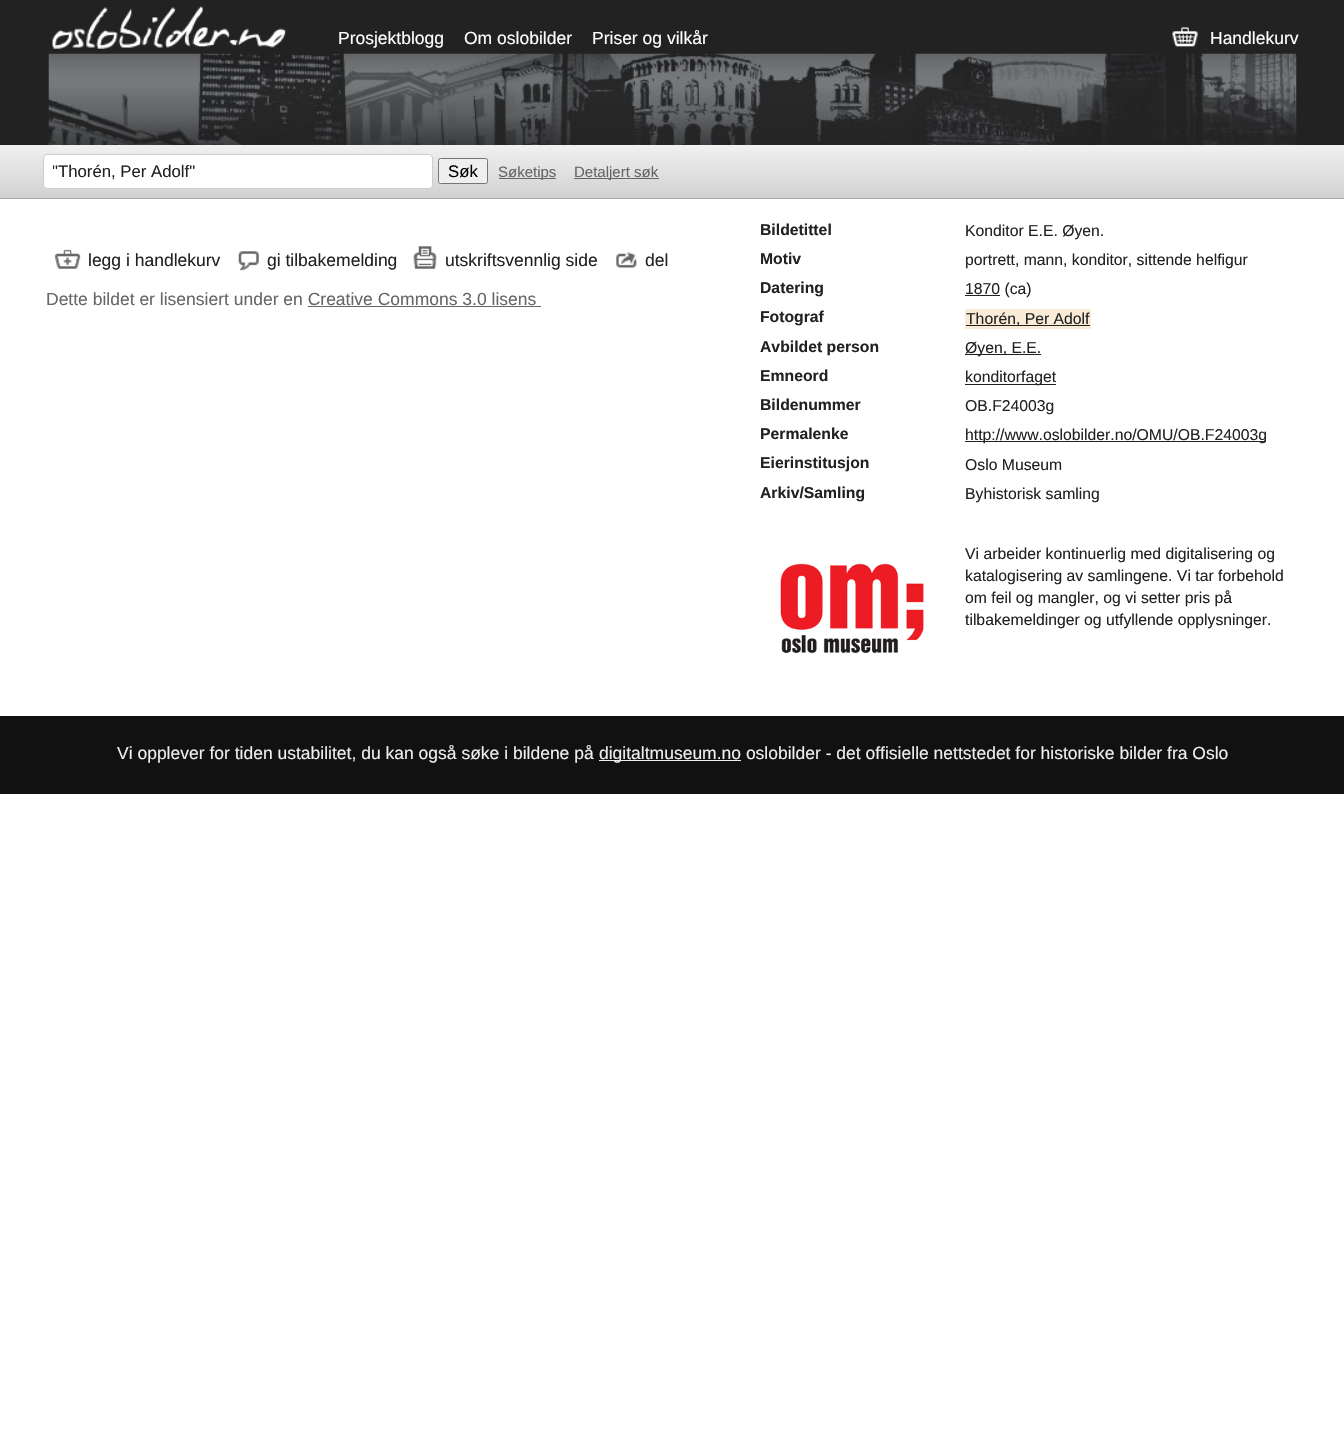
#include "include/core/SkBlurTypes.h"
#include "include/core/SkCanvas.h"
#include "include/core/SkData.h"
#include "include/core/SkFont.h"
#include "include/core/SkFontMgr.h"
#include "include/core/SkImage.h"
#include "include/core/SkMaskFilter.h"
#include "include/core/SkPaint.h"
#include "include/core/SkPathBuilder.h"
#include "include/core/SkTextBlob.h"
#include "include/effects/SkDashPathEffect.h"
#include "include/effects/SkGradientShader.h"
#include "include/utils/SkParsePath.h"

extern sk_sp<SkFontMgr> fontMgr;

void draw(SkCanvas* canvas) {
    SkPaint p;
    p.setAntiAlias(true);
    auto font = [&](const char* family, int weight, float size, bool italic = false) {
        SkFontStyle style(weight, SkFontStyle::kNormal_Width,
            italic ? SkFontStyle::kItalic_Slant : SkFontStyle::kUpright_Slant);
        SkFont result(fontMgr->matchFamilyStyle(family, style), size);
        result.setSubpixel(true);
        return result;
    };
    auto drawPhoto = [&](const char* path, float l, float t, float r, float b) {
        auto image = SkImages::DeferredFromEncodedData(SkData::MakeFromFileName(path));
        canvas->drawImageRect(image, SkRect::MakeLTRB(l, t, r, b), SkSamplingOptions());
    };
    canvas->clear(0xFFFFFFFF);
    p.setColor(0xFF222222);
    canvas->drawRect(SkRect::MakeLTRB(0, 0, 1344, 145), p);
    drawPhoto("media/1.png", 48, 53, 1297, 145);
    drawPhoto("media/2.png", 52, 6, 287, 49);
    auto font1 = font("Liberation Sans", 400, 17.5f);
    p.setColor(0xFFFFFFFF);
    {
        const struct { const char* s; float x, y; } items[] = {
            {"Prosjektblogg", 338, 44},
            {"Om oslobilder", 464, 44},
            {"Priser og vilkår", 592, 44},
        };
        for (auto [s, x, y] : items) {
            canvas->drawString(s, x, y, font1, p);
        }
    }
    drawPhoto("media/3.png", 1172, 27, 1198, 47);
    canvas->drawString("Handlekurv", 1210, 44, font1, p);
    {
        const SkColor colors[] = {0xFFF1F1F1, 0xFFD1D1D1};
        const float stops[] = {0, 1};
        const SkPoint ends[] = {{673, 145}, {673, 198}};
        p.setShader(SkGradientShader::MakeLinear(ends, colors, stops, 2, SkTileMode::kClamp));
        p.setAlpha(255);
    }
    canvas->drawRect(SkRect::MakeLTRB(0, 145, 1344, 198), p);
    p.setShader(nullptr);
    p.setColor(0xFFAAAAAA);
    canvas->drawRect(SkRect::MakeLTRB(0, 198, 1344, 199), p);
    p.setColor(0xFFFFFFFF);
    canvas->drawRoundRect(SkRect::MakeLTRB(43.5f, 154.5f, 432.5f, 188.5f), 3.5f, 3.5f, p);
    p.setStyle(SkPaint::kStroke_Style);
    p.setStrokeWidth(1);
    p.setColor(0xFFCCCCCC);
    canvas->drawRoundRect(SkRect::MakeLTRB(43.5f, 154.5f, 432.5f, 188.5f), 3.5f, 3.5f, p);
    canvas->save();
    canvas->clipRect(SkRect::MakeLTRB(53, 161, 424, 180));
    auto font2 = font("Liberation Sans", 400, 16.75f);
    p.setStyle(SkPaint::kFill_Style);
    p.setColor(0xFF222222);
    canvas->drawString("\"Thorén, Per Adolf\"", 52, 177, font2, p);
    canvas->restore();
    p.setColor(0xFFEFEFEF);
    canvas->drawRoundRect(SkRect::MakeLTRB(438.5f, 158.5f, 487.5f, 183.5f), 2, 2, p);
    p.setStyle(SkPaint::kStroke_Style);
    p.setColor(0xFF767676);
    canvas->drawRoundRect(SkRect::MakeLTRB(438.5f, 158.5f, 487.5f, 183.5f), 2, 2, p);
    p.setStyle(SkPaint::kFill_Style);
    p.setColor(0xFF000000);
    canvas->drawString("Søk", 448, 177, font2, p);
    p.setColor(0xFF666666);
    canvas->drawRect(SkRect::MakeLTRB(499, 178, 556, 179), p);
    auto font3 = font("Liberation Sans", 400, 15);
    canvas->drawString("Søketips", 498, 177, font3, p);
    canvas->drawRect(SkRect::MakeLTRB(574, 178, 659, 179), p);
    canvas->drawString("Detaljert søk", 574, 177, font3, p);
    drawPhoto("media/4.png", 54, 249, 81, 269);
    p.setColor(0xFF222222);
    canvas->drawString("legg i handlekurv", 88, 266, font1, p);
    drawPhoto("media/5.png", 238, 251, 259, 271);
    canvas->drawString("gi tilbakemelding", 267, 266, font1, p);
    drawPhoto("media/6.png", 413, 246, 437, 269);
    canvas->drawString("utskriftsvennlig side", 445, 266, font1, p);
    drawPhoto("media/7.png", 616, 252, 637, 268);
    canvas->drawString("del", 645, 266, font1, p);
    p.setColor(0xFF666666);
    canvas->drawString("Dette bildet er lisensiert under en Creative Commons 3.0 lisens", 46, 305, font1, p);
    canvas->drawRect(SkRect::MakeLTRB(308, 306, 541, 307), p);
    auto font4 = font("Liberation Sans", 700, 15.75f);
    p.setColor(0xFF222222);
    canvas->drawString("Bildetittel", 760, 235, font4, p);
    auto font5 = font("Liberation Sans", 400, 15.75f);
    canvas->drawString("Konditor E.E. Øyen.", 965, 236, font5, p);
    canvas->drawString("Motiv", 760, 264, font4, p);
    canvas->drawString("portrett, mann, konditor, sittende helfigur", 965, 265, font5, p);
    canvas->drawString("Datering", 760, 293, font4, p);
    canvas->drawRect(SkRect::MakeLTRB(965, 295, 1000, 296), p);
    canvas->drawString("1870 (ca)", 965, 294, font5, p);
    canvas->drawString("Fotograf", 760, 322, font4, p);
    p.setColor(0xFFFAEBD7);
    canvas->drawRect(SkRect::MakeLTRB(965, 309, 1091, 329), p);
    p.setColor(0xFF222222);
    canvas->drawRect(SkRect::MakeLTRB(966, 325, 1090, 326), p);
    canvas->drawString("Thorén, Per Adolf", 966, 324, font5, p);
    canvas->drawString("Avbildet person", 760, 352, font4, p);
    canvas->drawRect(SkRect::MakeLTRB(965, 354, 1041, 355), p);
    canvas->drawString("Øyen, E.E.", 965, 353, font5, p);
    canvas->drawString("Emneord", 760, 381, font4, p);
    canvas->drawRect(SkRect::MakeLTRB(965, 384, 1056, 385), p);
    canvas->drawString("konditorfaget", 965, 382, font5, p);
    canvas->drawString("Bildenummer", 760, 410, font4, p);
    canvas->drawString("OB.F24003g", 965, 411, font5, p);
    canvas->drawString("Permalenke", 760, 439, font4, p);
    canvas->drawRect(SkRect::MakeLTRB(965, 441, 1266, 442), p);
    canvas->drawString("http://www.oslobilder.no/OMU/OB.F24003g", 965, 440, font5, p);
    canvas->drawString("Eierinstitusjon", 760, 468, font4, p);
    canvas->drawString("Oslo Museum", 965, 470, font5, p);
    canvas->drawString("Arkiv/Samling", 760, 498, font4, p);
    canvas->drawString("Byhistorisk samling", 965, 499, font5, p);
    drawPhoto("media/8.png", 780, 563, 924, 654);
    {
        const struct { const char* s; float x, y; } items[] = {
            {"Vi arbeider kontinuerlig med digitalisering og", 965, 559},
            {"katalogisering av samlingene. Vi tar forbehold", 965, 581},
            {"om feil og mangler, og vi setter pris på", 965, 603},
            {"tilbakemeldinger og utfyllende opplysninger.", 965, 625},
        };
        for (auto [s, x, y] : items) {
            canvas->drawString(s, x, y, font5, p);
        }
    }
    p.setColor(0xFF111111);
    canvas->drawRect(SkRect::MakeLTRB(0, 716, 1344, 794), p);
    p.setColor(0xFFEEEEEE);
    canvas->drawString("Vi opplever for tiden ustabilitet, du kan også søke i bildene på", 117, 759, font1, p);
    canvas->drawRect(SkRect::MakeLTRB(599, 760, 741, 761), p);
    canvas->drawString("digitaltmuseum.no oslobilder - det offisielle nettstedet for historiske bilder fra Oslo", 599, 759, font1, p);
}
